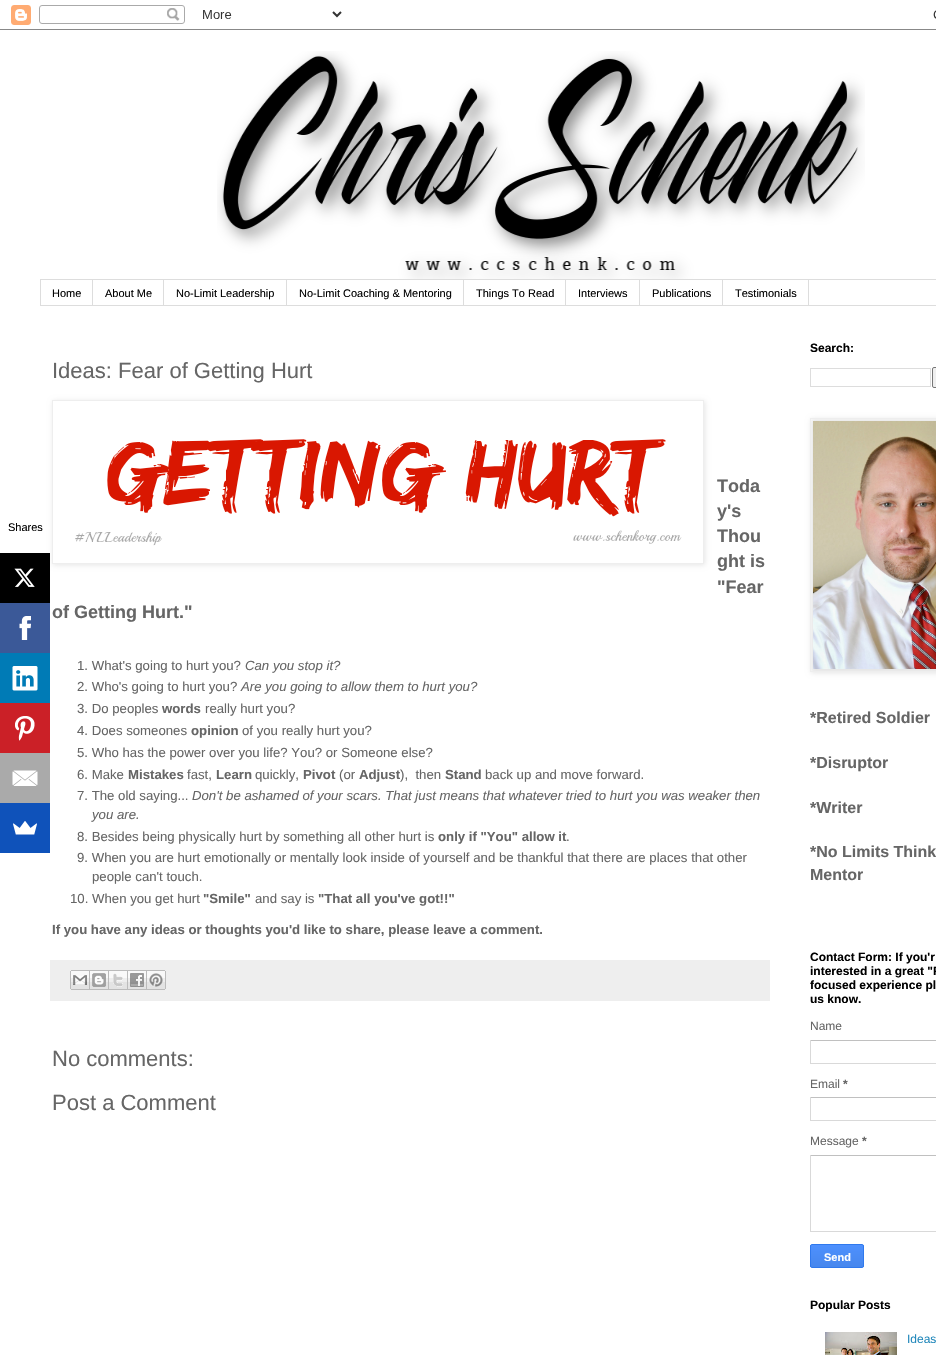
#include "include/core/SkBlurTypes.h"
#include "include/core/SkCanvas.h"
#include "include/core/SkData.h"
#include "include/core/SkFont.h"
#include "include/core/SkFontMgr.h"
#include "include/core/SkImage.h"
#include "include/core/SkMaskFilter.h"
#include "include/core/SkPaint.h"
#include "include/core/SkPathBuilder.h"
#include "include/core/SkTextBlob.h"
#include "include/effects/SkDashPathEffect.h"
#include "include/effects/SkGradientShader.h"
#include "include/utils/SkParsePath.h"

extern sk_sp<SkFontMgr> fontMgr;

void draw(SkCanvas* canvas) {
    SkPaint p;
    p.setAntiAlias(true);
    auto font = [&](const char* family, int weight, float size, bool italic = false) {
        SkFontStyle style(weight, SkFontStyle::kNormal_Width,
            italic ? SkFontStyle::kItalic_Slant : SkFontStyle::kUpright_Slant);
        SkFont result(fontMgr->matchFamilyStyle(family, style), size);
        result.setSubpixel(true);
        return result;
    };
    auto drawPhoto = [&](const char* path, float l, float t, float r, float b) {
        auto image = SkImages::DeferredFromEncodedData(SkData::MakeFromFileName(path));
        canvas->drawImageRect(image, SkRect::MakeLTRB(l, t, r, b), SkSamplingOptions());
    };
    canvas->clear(0xFFFFFFFF);
    drawPhoto("media/1.png", 0, 5, 936, 30);
    auto font1 = font("Liberation Sans", 400, 11);
    p.setColor(0xFF000000);
    canvas->drawString("Shares", 8, 531, font1, p);
    canvas->save();
    canvas->clipPath(SkPathBuilder(SkPathFillType::kEvenOdd).moveTo(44, 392).lineTo(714, 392).lineTo(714, 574).lineTo(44, 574).close().moveTo(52, 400).lineTo(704, 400).lineTo(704, 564).lineTo(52, 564).close().detach(), true);
    p.setColor(0x1A000000);
    p.setMaskFilter(SkMaskFilter::MakeBlur(kNormal_SkBlurStyle, 2.5f));
    canvas->drawRect(SkRect::MakeLTRB(53, 401, 705, 565), p);
    p.setMaskFilter(nullptr);
    canvas->restore();
    p.setColor(0xFF000000);
    canvas->drawRect(SkRect::MakeLTRB(0, 553, 50, 603), p);
    drawPhoto("media/2.png", 14, 568, 35, 587);
    p.setColor(0xFF3B5998);
    canvas->drawRect(SkRect::MakeLTRB(0, 603, 50, 653), p);
    drawPhoto("media/3.png", 19, 616, 31, 640);
    p.setColor(0xFF007BB6);
    canvas->drawRect(SkRect::MakeLTRB(0, 653, 50, 703), p);
    drawPhoto("media/4.png", 12, 666, 38, 691);
    p.setColor(0xFFCB2027);
    canvas->drawRect(SkRect::MakeLTRB(0, 703, 50, 753), p);
    drawPhoto("media/5.png", 15, 716, 35, 741);
    p.setColor(0xFFAAAAAA);
    canvas->drawRect(SkRect::MakeLTRB(0, 753, 50, 803), p);
    drawPhoto("media/6.png", 12, 770, 38, 786);
    p.setColor(0xFF0F52BA);
    canvas->drawRect(SkRect::MakeLTRB(0, 803, 50, 853), p);
    drawPhoto("media/7.png", 13, 821, 37, 835);
    drawPhoto("media/8.png", 217, 51, 865, 279);
    p.setStyle(SkPaint::kStroke_Style);
    p.setStrokeWidth(1);
    p.setColor(0xFFDDDDDD);
    canvas->drawRect(SkRect::MakeLTRB(40.5f, 279.5f, 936.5f, 305.5f), p);
    p.setStyle(SkPaint::kFill_Style);
    canvas->drawRect(SkRect::MakeLTRB(92, 280, 93, 305), p);
    p.setColor(0xFF000000);
    canvas->drawString("Home", 52, 297, font1, p);
    p.setColor(0xFFDDDDDD);
    canvas->drawRect(SkRect::MakeLTRB(163, 280, 164, 305), p);
    p.setColor(0xFF000000);
    canvas->drawString("About Me", 105, 297, font1, p);
    p.setColor(0xFFDDDDDD);
    canvas->drawRect(SkRect::MakeLTRB(286, 280, 287, 305), p);
    p.setColor(0xFF000000);
    canvas->drawString("No-Limit Leadership", 176, 297, font1, p);
    p.setColor(0xFFDDDDDD);
    canvas->drawRect(SkRect::MakeLTRB(463, 280, 464, 305), p);
    p.setColor(0xFF000000);
    canvas->drawString("No-Limit Coaching & Mentoring", 299, 297, font1, p);
    p.setColor(0xFFDDDDDD);
    canvas->drawRect(SkRect::MakeLTRB(565, 280, 566, 305), p);
    p.setColor(0xFF000000);
    canvas->drawString("Things To Read", 476, 297, font1, p);
    p.setColor(0xFFDDDDDD);
    canvas->drawRect(SkRect::MakeLTRB(639, 280, 640, 305), p);
    p.setColor(0xFF000000);
    canvas->drawString("Interviews", 578, 297, font1, p);
    p.setColor(0xFFDDDDDD);
    canvas->drawRect(SkRect::MakeLTRB(722, 280, 723, 305), p);
    p.setColor(0xFF000000);
    canvas->drawString("Publications", 652, 297, font1, p);
    p.setColor(0xFFDDDDDD);
    canvas->drawRect(SkRect::MakeLTRB(808, 280, 809, 305), p);
    p.setColor(0xFF000000);
    canvas->drawString("Testimonials", 735, 297, font1, p);
    auto font2 = font("Liberation Sans", 400, 22);
    p.setColor(0xFF666666);
    canvas->drawString("Ideas: Fear of Getting Hurt", 52, 378, font2, p);
    p.setStyle(SkPaint::kStroke_Style);
    p.setColor(0xFFEEEEEE);
    canvas->drawRect(SkRect::MakeLTRB(52.5f, 400.5f, 703.5f, 563.5f), p);
    drawPhoto("media/9.png", 75, 439, 682, 546);
    auto font3 = font("Liberation Sans", 700, 18);
    p.setStyle(SkPaint::kFill_Style);
    p.setColor(0xFF666666);
    {
        const struct { const char* s; float x, y; } items[] = {
            {"Toda", 717, 492},
            {"y's", 717, 517},
            {"Thou", 717, 542},
            {"ght is", 717, 567},
            {"\"Fear", 717, 593},
            {"of Getting Hurt.\"", 52, 618},
        };
        for (auto [s, x, y] : items) {
            canvas->drawString(s, x, y, font3, p);
        }
    }
    auto font4 = font("Liberation Sans", 400, 13.2f);
    canvas->drawString("1. What's going to hurt you?", 77, 670, font4, p);
    auto font5 = font("Liberation Sans", 400, 13.2f, true);
    canvas->drawString("Can you stop it?", 245, 670, font5, p);
    canvas->drawString("2. Who's going to hurt you?", 77, 691, font4, p);
    canvas->drawString("Are you going to allow them to hurt you?", 241, 691, font5, p);
    canvas->drawString("3. Do peoples", 77, 713, font4, p);
    auto font6 = font("Liberation Sans", 700, 13.2f);
    canvas->drawString("words", 162, 713, font6, p);
    canvas->drawString("really hurt you?", 205, 713, font4, p);
    canvas->drawString("4. Does someones", 77, 735, font4, p);
    canvas->drawString("opinion", 191, 735, font6, p);
    {
        const struct { const char* s; float x, y; } items[] = {
            {"of you really hurt you?", 242, 735},
            {"5. Who has the power over you life? You? or Someone else?", 77, 757},
            {"6. Make", 77, 779},
        };
        for (auto [s, x, y] : items) {
            canvas->drawString(s, x, y, font4, p);
        }
    }
    canvas->drawString("Mistakes", 128, 779, font6, p);
    canvas->drawString("fast,", 187, 779, font4, p);
    canvas->drawString("Learn", 216, 779, font6, p);
    canvas->drawString("quickly,", 255, 779, font4, p);
    canvas->drawString("Pivot", 303, 779, font6, p);
    canvas->drawString("(or", 339, 779, font4, p);
    canvas->drawString("Adjust", 359, 779, font6, p);
    canvas->drawString("),  then", 400, 779, font4, p);
    canvas->drawString("Stand", 445, 779, font6, p);
    canvas->drawString("back up and move forward.", 485, 779, font4, p);
    canvas->drawString("7. The old saying...", 77, 800, font4, p);
    canvas->drawString("Don't be ashamed of your scars. That just means that whatever tried to hurt you was weaker then", 192, 800, font5, p);
    canvas->drawString("you are.", 92, 819, font5, p);
    canvas->drawString("8. Besides being physically hurt by something all other hurt is", 77, 841, font4, p);
    canvas->drawString("only if \"You\" allow it", 438, 841, font6, p);
    {
        const struct { const char* s; float x, y; } items[] = {
            {".", 566, 841},
            {"9. When you are hurt emotionally or mentally look inside of yourself and be thankful that there are places that other", 77, 862},
            {"people can't touch.", 92, 881},
            {"10. When you get hurt", 70, 903},
        };
        for (auto [s, x, y] : items) {
            canvas->drawString(s, x, y, font4, p);
        }
    }
    canvas->drawString("\"Smile\"", 203, 903, font6, p);
    canvas->drawString("and say is", 255, 903, font4, p);
    canvas->drawString("\"That all you've got!!\"", 318, 903, font6, p);
    canvas->drawString("If you have any ideas or thoughts you'd like to share, please leave a comment.", 52, 934, font6, p);
    p.setColor(0xFFEEEEEE);
    canvas->drawRect(SkRect::MakeLTRB(50, 960, 770, 1001), p);
    drawPhoto("media/10.png", 70, 970, 90, 990);
    drawPhoto("media/11.png", 90, 970, 109, 990);
    drawPhoto("media/12.png", 109, 970, 128, 990);
    drawPhoto("media/13.png", 128, 970, 147, 990);
    drawPhoto("media/14.png", 147, 970, 166, 990);
    p.setColor(0xFF666666);
    canvas->drawString("No comments:", 52, 1066, font2, p);
    canvas->drawString("Post a Comment", 52, 1110, font2, p);
    auto font7 = font("Liberation Sans", 700, 12);
    p.setColor(0xFF000000);
    canvas->drawString("Search:", 810, 352, font7, p);
    p.setStyle(SkPaint::kStroke_Style);
    p.setColor(0xFFDDDDDD);
    canvas->drawRect(SkRect::MakeLTRB(810.5f, 368.5f, 930.5f, 386.5f), p);
    p.setStyle(SkPaint::kFill_Style);
    p.setColor(0xFFEFEFEF);
    canvas->drawRoundRect(SkRect::MakeLTRB(932.5f, 367.5f, 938.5f, 387.5f), 1.5f, 1.5f, p);
    p.setStyle(SkPaint::kStroke_Style);
    p.setColor(0xFF767676);
    canvas->drawRoundRect(SkRect::MakeLTRB(932.5f, 367.5f, 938.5f, 387.5f), 1.5f, 1.5f, p);
    p.setStyle(SkPaint::kFill_Style);
    p.setColor(0x1A000000);
    p.setMaskFilter(SkMaskFilter::MakeBlur(kNormal_SkBlurStyle, 2.5f));
    canvas->drawRect(SkRect::MakeLTRB(811, 419, 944, 673), p);
    p.setMaskFilter(nullptr);
    p.setStyle(SkPaint::kStroke_Style);
    p.setColor(0xFFEEEEEE);
    canvas->drawRect(SkRect::MakeLTRB(810.5f, 418.5f, 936.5f, 671.5f), p);
    drawPhoto("media/15.png", 813, 421, 936, 669);
    auto font8 = font("Liberation Sans", 700, 16);
    p.setStyle(SkPaint::kFill_Style);
    p.setColor(0xFF666666);
    {
        const struct { const char* s; float x, y; } items[] = {
            {"*Retired Soldier", 810, 723},
            {"*Disruptor", 810, 768},
            {"*Writer", 810, 813},
            {"*No Limits Think", 810, 857},
            {"Mentor", 810, 880},
        };
        for (auto [s, x, y] : items) {
            canvas->drawString(s, x, y, font8, p);
        }
    }
    p.setColor(0xFF000000);
    {
        const struct { const char* s; float x, y; } items[] = {
            {"Contact Form: If you'r", 810, 961},
            {"interested in a great \"P", 810, 975},
            {"focused experience pl", 810, 989},
            {"us know.", 810, 1003},
        };
        for (auto [s, x, y] : items) {
            canvas->drawString(s, x, y, font7, p);
        }
    }
    auto font9 = font("Liberation Sans", 400, 12);
    p.setColor(0xFF666666);
    canvas->drawString("Name", 810, 1030, font9, p);
    {
        const struct { float l, t, r, b; SkColor color; } items[] = {
            {810, 1040, 936, 1041, 0xFFC0C0C0},
            {810, 1063, 936, 1064, 0xFFD9D9D9},
            {810, 1040, 811, 1064, 0xFFD9D9D9},
        };
        for (auto [l, t, r, b, color] : items) {
            p.setColor(color);
            canvas->drawRect(SkRect::MakeLTRB(l, t, r, b), p);
        }
    }
    p.setColor(0xFF666666);
    canvas->drawString("Email", 810, 1088, font9, p);
    canvas->drawString("*", 843, 1088, font7, p);
    {
        const struct { float l, t, r, b; SkColor color; } items[] = {
            {810, 1097, 936, 1098, 0xFFC0C0C0},
            {810, 1120, 936, 1121, 0xFFD9D9D9},
            {810, 1097, 811, 1121, 0xFFD9D9D9},
        };
        for (auto [l, t, r, b, color] : items) {
            p.setColor(color);
            canvas->drawRect(SkRect::MakeLTRB(l, t, r, b), p);
        }
    }
    p.setColor(0xFF666666);
    canvas->drawString("Message", 810, 1145, font9, p);
    canvas->drawString("*", 862, 1145, font7, p);
    {
        const struct { float l, t, r, b; SkColor color; } items[] = {
            {810, 1155, 936, 1156, 0xFFC0C0C0},
            {810, 1231, 936, 1232, 0xFFD9D9D9},
            {810, 1155, 811, 1232, 0xFFD9D9D9},
        };
        for (auto [l, t, r, b, color] : items) {
            p.setColor(color);
            canvas->drawRect(SkRect::MakeLTRB(l, t, r, b), p);
        }
    }
    canvas->save();
    canvas->clipPath(SkPathBuilder().moveTo(812, 1244).lineTo(862, 1244).cubicTo(863, 1244, 864, 1245, 864, 1246).lineTo(864, 1266).cubicTo(864, 1267, 863, 1268, 862, 1268).lineTo(812, 1268).cubicTo(811, 1268, 810, 1267, 810, 1266).lineTo(810, 1246).cubicTo(810, 1245, 811, 1244, 812, 1244).close().detach(), true);
    {
        const SkColor colors[] = {0xFF4D90FE, 0xFF4787ED};
        const float stops[] = {0, 1};
        const SkPoint ends[] = {{837, 1245}, {837, 1267}};
        p.setShader(SkGradientShader::MakeLinear(ends, colors, stops, 2, SkTileMode::kClamp));
        p.setAlpha(255);
    }
    canvas->drawRect(SkRect::MakeLTRB(810, 1245, 864, 1267), p);
    canvas->restore();
    p.setStyle(SkPaint::kStroke_Style);
    p.setShader(nullptr);
    p.setColor(0xFF3079ED);
    canvas->drawRoundRect(SkRect::MakeLTRB(810.5f, 1244.5f, 863.5f, 1267.5f), 1.5f, 1.5f, p);
    auto font10 = font("Liberation Sans", 700, 11);
    p.setStyle(SkPaint::kFill_Style);
    p.setColor(0xFFFFFFFF);
    canvas->drawString("Send", 824, 1261, font10, p);
    p.setColor(0xFF000000);
    canvas->drawString("Popular Posts", 810, 1309, font7, p);
    drawPhoto("media/16.png", 825, 1332, 897, 1355);
    p.setColor(0xFF2288BB);
    canvas->drawString("Ideas", 907, 1343, font9, p);
}
